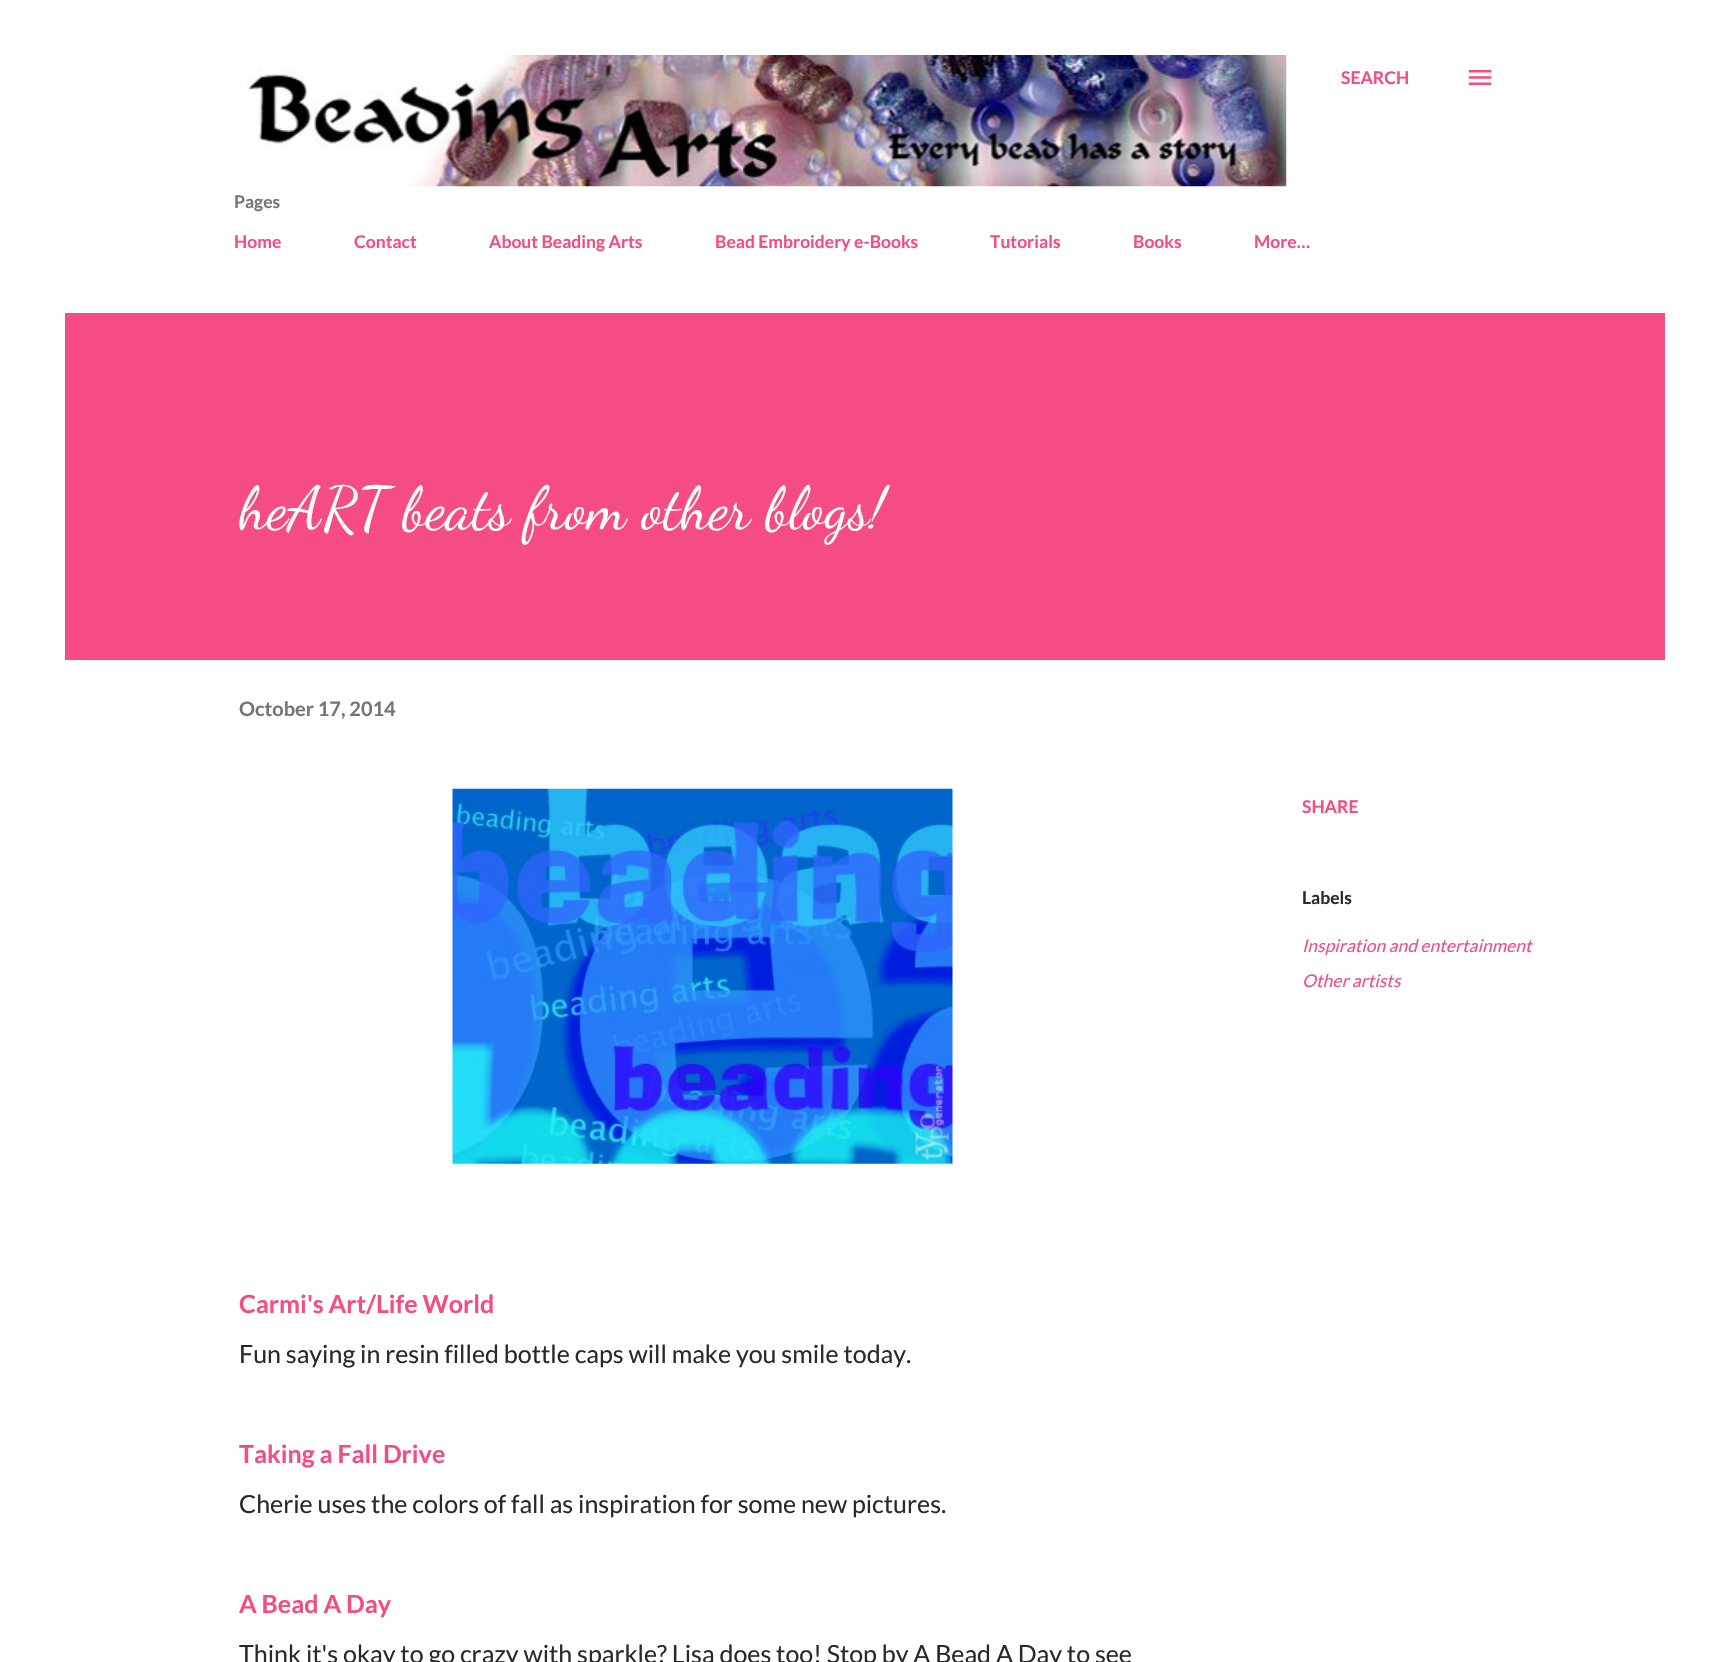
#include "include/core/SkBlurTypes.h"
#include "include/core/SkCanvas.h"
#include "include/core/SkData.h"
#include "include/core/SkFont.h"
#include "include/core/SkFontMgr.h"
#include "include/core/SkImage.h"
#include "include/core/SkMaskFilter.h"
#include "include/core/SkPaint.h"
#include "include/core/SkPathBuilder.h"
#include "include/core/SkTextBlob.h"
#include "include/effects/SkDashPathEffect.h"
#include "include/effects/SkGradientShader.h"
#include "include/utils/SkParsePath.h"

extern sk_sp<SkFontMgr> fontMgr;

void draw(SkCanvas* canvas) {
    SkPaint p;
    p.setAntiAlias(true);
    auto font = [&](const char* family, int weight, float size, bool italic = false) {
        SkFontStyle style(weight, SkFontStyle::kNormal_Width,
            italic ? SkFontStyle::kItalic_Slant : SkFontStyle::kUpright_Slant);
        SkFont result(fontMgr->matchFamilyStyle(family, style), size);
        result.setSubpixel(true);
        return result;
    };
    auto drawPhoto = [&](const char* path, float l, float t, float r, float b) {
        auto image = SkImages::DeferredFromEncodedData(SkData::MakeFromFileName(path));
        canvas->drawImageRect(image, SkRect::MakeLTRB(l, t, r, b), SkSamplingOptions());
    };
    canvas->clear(0xFFFFFFFF);
    drawPhoto("media/1.png", 247, 55, 1287, 187);
    auto font1 = font("Lato", 700, 17.5f);
    p.setColor(0xFFF44C83);
    canvas->drawString("SEARCH", 1341, 84, font1, p);
    drawPhoto("media/2.png", 1468, 70, 1492, 85);
    p.setColor(0xFF757575);
    canvas->drawString("Pages", 234, 208, font1, p);
    p.setColor(0xFFF44C83);
    {
        const struct { const char* s; float x, y; } items[] = {
            {"Home", 234, 248},
            {"Contact", 354, 248},
            {"About Beading Arts", 489, 248},
            {"Bead Embroidery e-Books", 715, 248},
            {"Tutorials", 990, 248},
            {"Books", 1133, 248},
            {"More…", 1254, 248},
        };
        for (auto [s, x, y] : items) {
            canvas->drawString(s, x, y, font1, p);
        }
    }
    canvas->drawRect(SkRect::MakeLTRB(65, 313, 1665, 660), p);
    auto font2 = font("Dancing Script", 400, 60);
    p.setColor(0xFFFFFFFF);
    canvas->drawString("heART beats from other blogs!", 239, 528, font2, p);
    auto font3 = font("Lato", 700, 20);
    p.setColor(0xFF757575);
    canvas->drawString("October 17, 2014", 239, 716, font3, p);
    p.setColor(0xFFF44C83);
    canvas->drawString("SHARE", 1302, 813, font1, p);
    p.setColor(0xFF292929);
    canvas->drawString("Labels", 1302, 904, font1, p);
    auto font4 = font("Lato", 400, 17.5f, true);
    p.setColor(0xFFF44C83);
    canvas->drawString("Inspiration and entertainment", 1302, 952, font4, p);
    canvas->drawString("Other artists", 1302, 987, font4, p);
    drawPhoto("media/3.png", 452, 788, 953, 1164);
    auto font5 = font("Lato", 700, 25);
    canvas->drawString("Carmi's Art/Life World", 239, 1313, font5, p);
    auto font6 = font("Lato", 400, 25);
    p.setColor(0xFF292929);
    canvas->drawString("Fun saying in resin filled bottle caps will make you smile today.", 239, 1363, font6, p);
    p.setColor(0xFFF44C83);
    canvas->drawString("Taking a Fall Drive", 239, 1463, font5, p);
    p.setColor(0xFF292929);
    canvas->drawString("Cherie uses the colors of fall as inspiration for some new pictures.", 239, 1513, font6, p);
    p.setColor(0xFFF44C83);
    canvas->drawString("A Bead A Day", 239, 1613, font5, p);
    p.setColor(0xFF292929);
    canvas->drawString("Think it's okay to go crazy with sparkle? Lisa does too! Stop by A Bead A Day to see", 239, 1663, font6, p);
}
